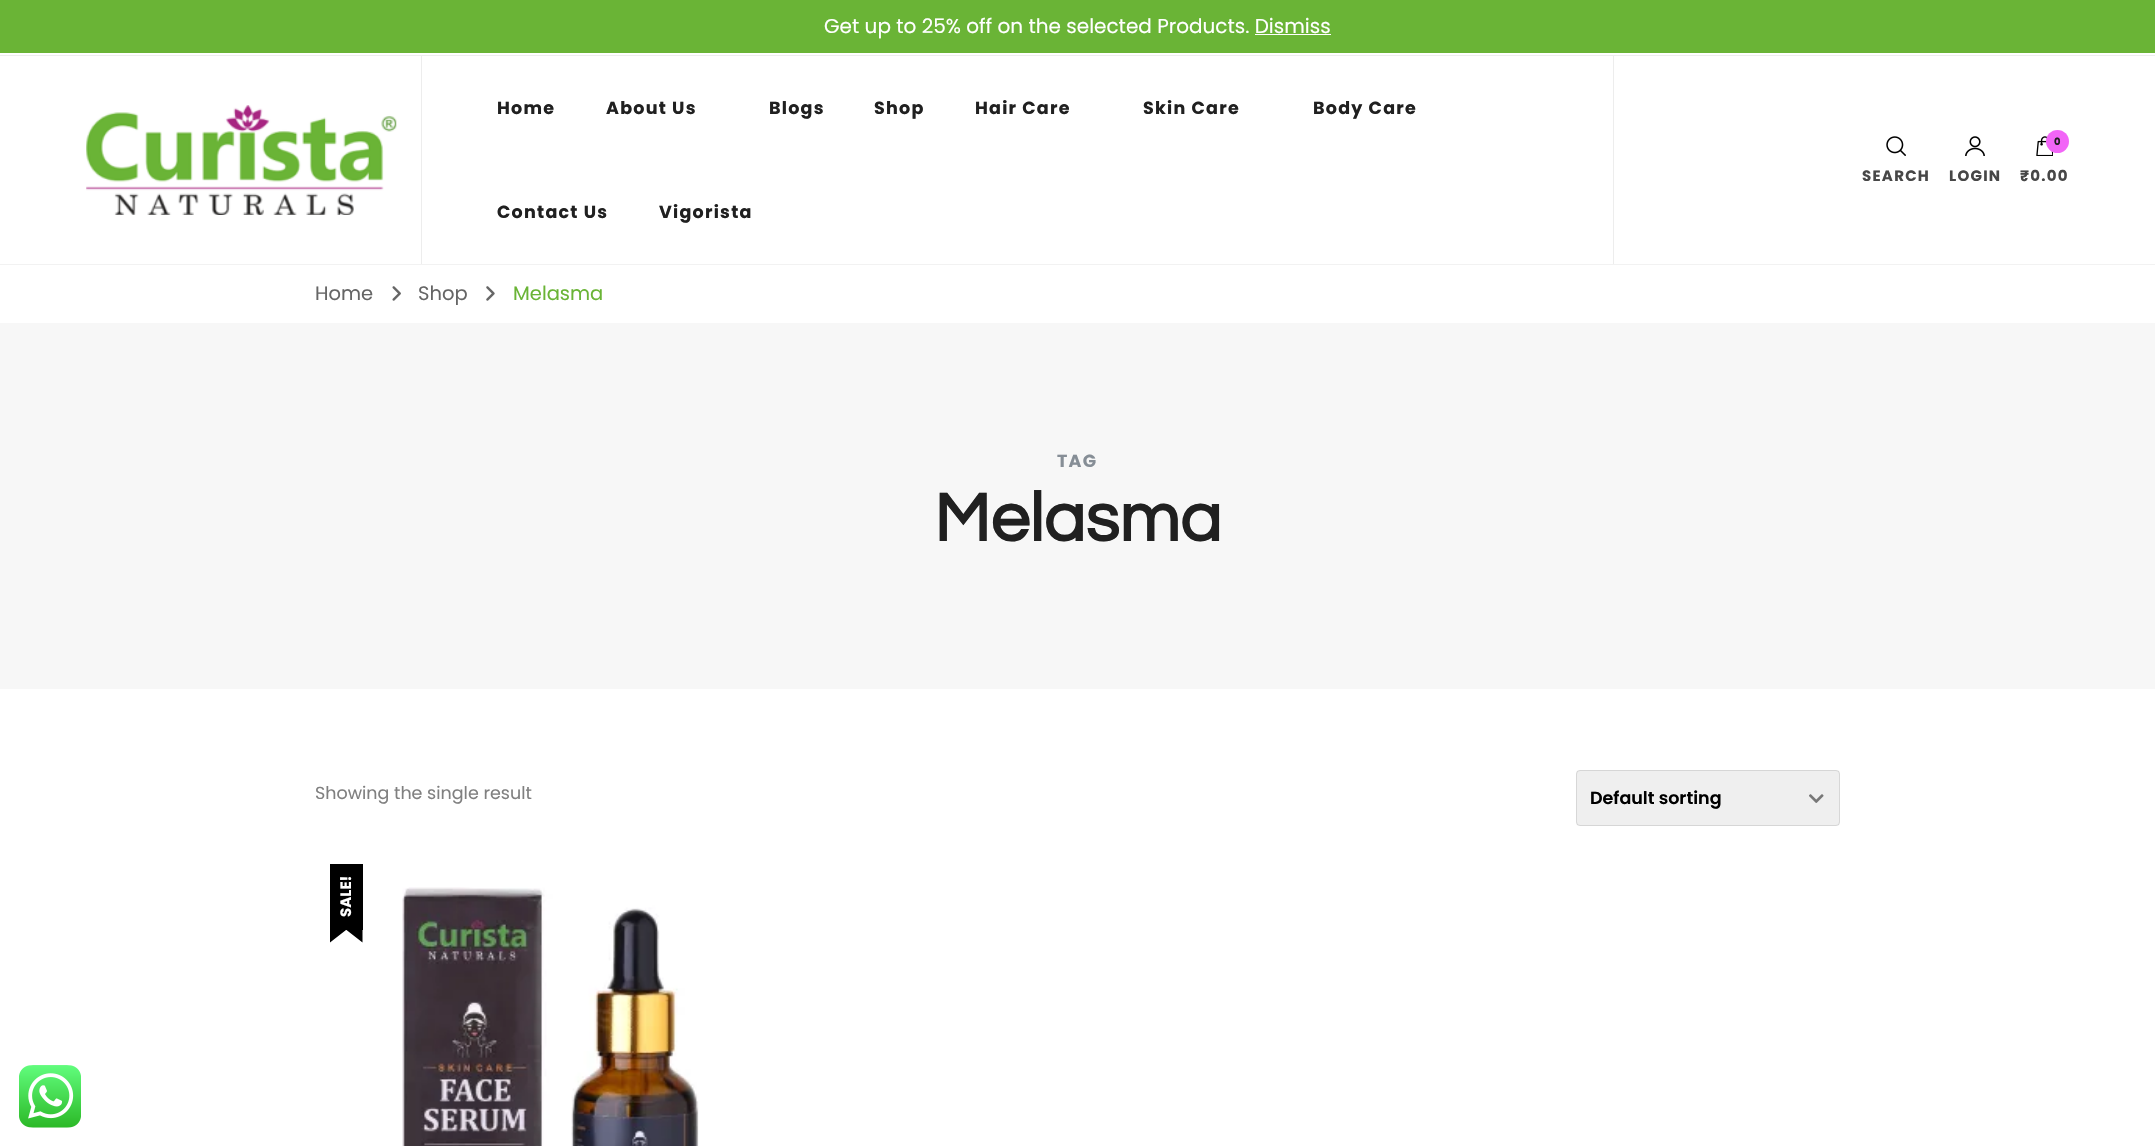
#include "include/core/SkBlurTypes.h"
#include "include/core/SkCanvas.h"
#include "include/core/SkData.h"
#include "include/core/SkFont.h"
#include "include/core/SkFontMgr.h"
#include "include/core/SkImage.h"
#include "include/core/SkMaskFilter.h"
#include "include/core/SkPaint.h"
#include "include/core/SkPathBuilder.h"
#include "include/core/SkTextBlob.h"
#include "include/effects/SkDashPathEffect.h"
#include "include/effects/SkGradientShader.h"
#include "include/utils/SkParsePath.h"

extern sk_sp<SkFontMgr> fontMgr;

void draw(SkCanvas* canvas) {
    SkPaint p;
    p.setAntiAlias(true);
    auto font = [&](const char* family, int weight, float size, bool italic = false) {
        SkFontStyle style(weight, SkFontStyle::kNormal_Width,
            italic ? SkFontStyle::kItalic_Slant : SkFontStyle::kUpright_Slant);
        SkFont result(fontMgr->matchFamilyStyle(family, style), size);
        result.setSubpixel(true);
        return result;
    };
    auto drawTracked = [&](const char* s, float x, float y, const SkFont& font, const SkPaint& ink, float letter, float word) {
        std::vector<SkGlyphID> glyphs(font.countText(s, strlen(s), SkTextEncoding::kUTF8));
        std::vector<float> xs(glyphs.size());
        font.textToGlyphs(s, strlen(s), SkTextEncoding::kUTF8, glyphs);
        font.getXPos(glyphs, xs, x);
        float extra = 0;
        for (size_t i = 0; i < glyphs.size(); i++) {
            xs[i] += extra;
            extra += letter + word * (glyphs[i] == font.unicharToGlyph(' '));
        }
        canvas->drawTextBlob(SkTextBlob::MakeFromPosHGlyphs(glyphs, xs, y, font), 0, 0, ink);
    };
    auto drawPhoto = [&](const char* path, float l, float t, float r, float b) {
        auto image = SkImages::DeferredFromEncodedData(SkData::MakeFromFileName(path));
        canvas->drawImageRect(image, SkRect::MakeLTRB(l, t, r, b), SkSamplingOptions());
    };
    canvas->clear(0xFFFFFFFF);
    p.setColor(0xFF6AB436);
    canvas->drawRect(SkRect::MakeLTRB(0, 0, 2155, 53), p);
    auto font1 = font("Poppins", 400, 20);
    p.setColor(0xFFFFFFFF);
    canvas->drawString("Get up to 25% off on the selected Products. Dismiss", 824, 33, font1, p);
    {
        const struct { float l, t, r, b; SkColor color; } items[] = {
            {1255, 34, 1331, 35, 0xFFFFFFFF},
            {0, 55, 2155, 56, 0xFFEDEDED},
            {0, 264, 2155, 265, 0xFFF2F2F2},
            {421, 56, 422, 264, 0xFFEDEDED},
        };
        for (auto [l, t, r, b, color] : items) {
            p.setColor(color);
            canvas->drawRect(SkRect::MakeLTRB(l, t, r, b), p);
        }
    }
    drawPhoto("media/1.png", 86, 105, 397, 215);
    auto font2 = font("Poppins", 700, 17.5f);
    p.setColor(0xFF202020);
    {
        const struct { const char* s; float x, y; } items[] = {
            {"Home", 497, 114},
            {"About Us", 606, 114},
            {"Blogs", 769, 114},
            {"Shop", 874, 114},
            {"Hair Care", 975, 114},
            {"Skin Care", 1143, 114},
            {"Body Care", 1313, 114},
            {"Contact Us", 497, 218},
            {"Vigorista", 659, 218},
        };
        for (auto [s, x, y] : items) {
            drawTracked(s, x, y, font2, p, 1.25f, 0);
        }
    }
    p.setColor(0xFFEDEDED);
    canvas->drawRect(SkRect::MakeLTRB(1613, 56, 1614, 264), p);
    drawPhoto("media/2.png", 1886, 136, 1906, 156);
    auto font3 = font("Poppins", 700, 15);
    p.setColor(0xFF474747);
    drawTracked("SEARCH", 1862, 181, font3, p, 1.25f, 0);
    drawPhoto("media/3.png", 1965, 136, 1985, 156);
    drawTracked("LOGIN", 1949, 181, font3, p, 1.25f, 0);
    drawPhoto("media/4.png", 2036, 136, 2053, 156);
    p.setColor(0xFFF265F7);
    canvas->drawCircle(2057.5f, 141.5f, 11.5f, p);
    auto font4 = font("Poppins", 700, 10);
    p.setColor(0xFF202020);
    drawTracked("0", 2054, 145, font4, p, 1.25f, 0);
    p.setColor(0xFF474747);
    drawTracked("₹0.00", 2020, 181, font3, p, 1.25f, 0);
    auto font5 = font("Poppins", 400, 19.5f);
    p.setColor(0xFF666666);
    canvas->drawString("Home", 315, 300, font5, p);
    drawPhoto("media/5.png", 392, 286, 401, 301);
    canvas->drawString("Shop", 418, 300, font5, p);
    drawPhoto("media/6.png", 486, 286, 495, 301);
    p.setColor(0xFF6AB436);
    canvas->drawString("Melasma", 513, 300, font5, p);
    p.setColor(0xFFF7F7F7);
    canvas->drawRect(SkRect::MakeLTRB(0, 323, 2155, 689), p);
    p.setColor(0xFF868E96);
    drawTracked("TAG", 1057, 467, font2, p, 1.25f, 0);
    auto font6 = font("Questrial", 700, 70);
    p.setColor(0xFF202020);
    canvas->drawString("Melasma", 934, 541, font6, p);
    auto font7 = font("Poppins", 400, 17.5f);
    p.setColor(0xFF808080);
    canvas->drawString("Showing the single result", 315, 799, font7, p);
    p.setColor(0xFFEFEFEF);
    canvas->drawRoundRect(SkRect::MakeLTRB(1576, 770, 1840, 826), 4, 4, p);
    drawPhoto("media/7.png", 1809, 794, 1824, 803);
    p.setStyle(SkPaint::kStroke_Style);
    p.setStrokeWidth(1);
    p.setColor(0x1A000000);
    canvas->drawRoundRect(SkRect::MakeLTRB(1576.5f, 770.5f, 1839.5f, 825.5f), 3.5f, 3.5f, p);
    auto font8 = font("Poppins", 600, 17.5f);
    p.setStyle(SkPaint::kFill_Style);
    p.setColor(0xFF000000);
    canvas->drawString("Default sorting", 1590, 804, font8, p);
    canvas->drawRect(SkRect::MakeLTRB(330, 864, 363, 930), p);
    p.setColor(0xFFFFFFFF);
    canvas->save();
    canvas->rotate(-90, 351, 917);
    canvas->drawString("SALE!", 351, 917, font3, p);
    canvas->restore();
    p.setColor(0xFF000000);
    canvas->drawPath(SkPathBuilder().moveTo(330, 930).lineTo(346, 930).lineTo(330, 942.5f).close().moveTo(346.5f, 930).lineTo(362.5f, 930).lineTo(362.5f, 942.5f).close().detach(), p);
    drawPhoto("media/8.png", 402, 887, 699, 1146);
    drawPhoto("media/9.png", 19, 1065, 81, 1128);
}
